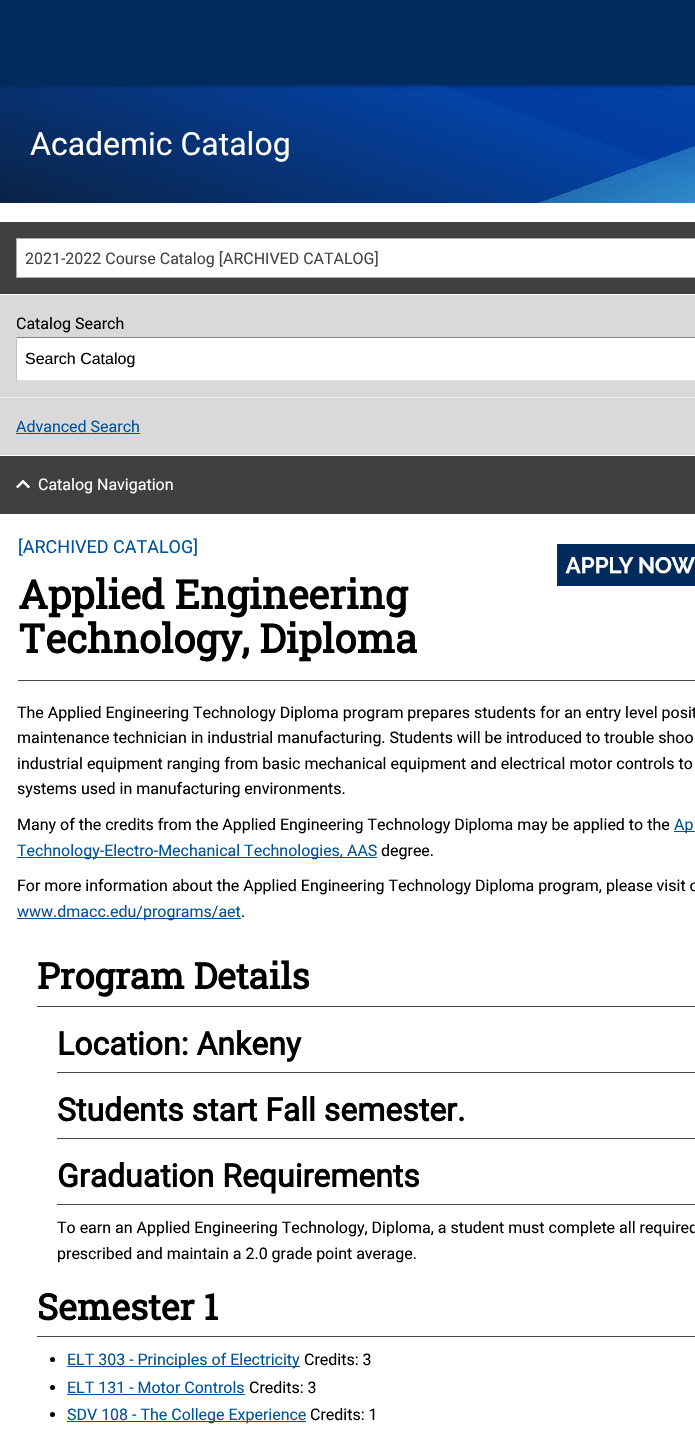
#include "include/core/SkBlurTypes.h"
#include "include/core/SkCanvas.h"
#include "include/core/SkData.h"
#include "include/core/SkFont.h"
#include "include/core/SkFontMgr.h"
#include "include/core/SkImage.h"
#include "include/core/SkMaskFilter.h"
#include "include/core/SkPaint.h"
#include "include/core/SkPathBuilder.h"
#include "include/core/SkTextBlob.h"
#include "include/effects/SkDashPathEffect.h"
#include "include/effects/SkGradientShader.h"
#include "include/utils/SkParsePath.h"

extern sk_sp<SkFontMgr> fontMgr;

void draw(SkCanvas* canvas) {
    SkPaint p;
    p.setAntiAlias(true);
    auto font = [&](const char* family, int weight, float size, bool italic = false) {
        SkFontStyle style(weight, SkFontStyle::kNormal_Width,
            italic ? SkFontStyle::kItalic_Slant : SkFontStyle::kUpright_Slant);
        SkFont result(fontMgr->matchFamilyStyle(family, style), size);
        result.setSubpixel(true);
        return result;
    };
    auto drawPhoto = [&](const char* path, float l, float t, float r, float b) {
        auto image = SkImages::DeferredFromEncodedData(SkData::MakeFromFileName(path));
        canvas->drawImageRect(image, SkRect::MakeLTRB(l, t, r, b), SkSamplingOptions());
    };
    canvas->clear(0xFFFFFFFF);
    {
        const SkColor colors[] = {0xFF0A2345, 0xFF0444AA, 0xFF003DA7, 0xFF003DA7};
        const float stops[] = {0, 0.65f, 0.65f, 1};
        const SkPoint ends[] = {{359, 334}, {497, -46}};
        p.setShader(SkGradientShader::MakeLinear(ends, colors, stops, 4, SkTileMode::kClamp));
        p.setAlpha(255);
    }
    canvas->drawRect(SkRect::MakeLTRB(0, 85, 695, 203), p);
    {
        const SkColor colors[] = {0x00000000, 0x000A2240, 0x0D0A2240, 0x1F54C8E8};
        const float stops[] = {0, 0.65f, 0.65f, 1};
        const SkPoint ends[] = {{359, 334}, {497, -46}};
        p.setShader(SkGradientShader::MakeLinear(ends, colors, stops, 4, SkTileMode::kClamp));
        p.setAlpha(255);
    }
    canvas->drawRect(SkRect::MakeLTRB(445, 85, 695, 176), p);
    p.setShader(nullptr);
    p.setColor(0x40000000);
    p.setMaskFilter(SkMaskFilter::MakeBlur(kNormal_SkBlurStyle, 2.5f));
    canvas->drawRect(SkRect::MakeLTRB(0, 0, 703, 85), p);
    p.setMaskFilter(nullptr);
    p.setMaskFilter(SkMaskFilter::MakeBlur(kNormal_SkBlurStyle, 2.5f));
    canvas->drawRect(SkRect::MakeLTRB(0, 0, 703, 85), p);
    p.setMaskFilter(nullptr);
    p.setColor(0xFF002B5C);
    canvas->drawRect(SkRect::MakeLTRB(0, 0, 695, 85), p);
    {
        const SkColor colors[] = {0x00000000, 0x0054C8E8, 0x5954C8E8, 0xBF54C8E8};
        const float stops[] = {0, 0.73f, 0.73f, 1};
        const SkPoint ends[] = {{359, -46}, {497, 334}};
        p.setShader(SkGradientShader::MakeLinear(ends, colors, stops, 4, SkTileMode::kClamp));
        p.setAlpha(255);
    }
    canvas->drawRect(SkRect::MakeLTRB(539, 146, 695, 203), p);
    auto font1 = font("Roboto", 400, 32);
    p.setShader(nullptr);
    p.setColor(0xFFFFFFFF);
    canvas->drawString("Academic Catalog", 30, 155, font1, p);
    p.setColor(0xFF404040);
    canvas->drawRect(SkRect::MakeLTRB(0, 222, 695, 294), p);
    p.setColor(0xFFFFFFFF);
    canvas->drawRect(SkRect::MakeLTRB(16.5f, 238.5f, 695.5f, 277.5f), p);
    p.setStyle(SkPaint::kStroke_Style);
    p.setStrokeWidth(1);
    p.setColor(0xFFAAAAAA);
    canvas->drawRect(SkRect::MakeLTRB(16.5f, 238.5f, 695.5f, 277.5f), p);
    auto font2 = font("Roboto", 400, 16);
    p.setStyle(SkPaint::kFill_Style);
    p.setColor(0xFF444444);
    canvas->drawString("2021-2022 Course Catalog [ARCHIVED CATALOG]", 25, 264, font2, p);
    p.setColor(0xFFD9D9D9);
    canvas->drawRect(SkRect::MakeLTRB(0, 295, 695, 455), p);
    p.setColor(0xFF000000);
    canvas->drawString("Catalog Search", 16, 329, font2, p);
    {
        const struct { float l, t, r, b; SkColor color; } items[] = {
            {17, 338, 695, 380, 0xFFFFFFFF},
            {16, 337, 695, 338, 0xFF848484},
            {16, 380, 695, 381, 0xFFE1E1E1},
            {16, 337, 17, 381, 0xFFC1C1C1},
        };
        for (auto [l, t, r, b, color] : items) {
            p.setColor(color);
            canvas->drawRect(SkRect::MakeLTRB(l, t, r, b), p);
        }
    }
    auto font3 = font("Liberation Sans", 400, 16);
    p.setColor(0xFF000000);
    canvas->drawString("Search Catalog", 25, 364, font3, p);
    p.setColor(0xFFECECEC);
    canvas->drawRect(SkRect::MakeLTRB(0, 397, 695, 398), p);
    p.setColor(0xFF00539B);
    canvas->drawString("Advanced Search", 16, 432, font2, p);
    canvas->drawRect(SkRect::MakeLTRB(16, 433, 140, 434), p);
    p.setColor(0xFF404040);
    canvas->drawRect(SkRect::MakeLTRB(0, 456, 695, 514), p);
    drawPhoto("media/1.png", 16, 479, 30, 489);
    p.setColor(0xFFFFFFFF);
    canvas->drawString("Catalog Navigation", 38, 490, font2, p);
    auto font4 = font("Roboto", 400, 18);
    p.setColor(0xFF00539B);
    canvas->drawString("[ARCHIVED CATALOG]", 18, 553, font4, p);
    drawPhoto("media/2.png", 557, 544, 695, 586);
    auto font5 = font("Roboto Slab", 700, 40);
    p.setColor(0xFF000000);
    canvas->drawString("Applied Engineering", 18, 609, font5, p);
    canvas->drawString("Technology, Diploma", 18, 653, font5, p);
    p.setColor(0xFF444444);
    canvas->drawRect(SkRect::MakeLTRB(18, 680, 695, 681), p);
    p.setColor(0xFF000000);
    {
        const struct { const char* s; float x, y; } items[] = {
            {"The Applied Engineering Technology Diploma program prepares students for an entry level posit", 17, 718},
            {"maintenance technician in industrial manufacturing. Students will be introduced to trouble shoo", 17, 743},
            {"industrial equipment ranging from basic mechanical equipment and electrical motor controls to", 17, 769},
            {"systems used in manufacturing environments.", 17, 794},
            {"Many of the credits from the Applied Engineering Technology Diploma may be applied to the", 17, 830},
        };
        for (auto [s, x, y] : items) {
            canvas->drawString(s, x, y, font2, p);
        }
    }
    p.setColor(0xFF00539B);
    canvas->drawRect(SkRect::MakeLTRB(674, 831, 695, 832), p);
    canvas->drawString("Ap", 674, 830, font2, p);
    canvas->drawRect(SkRect::MakeLTRB(17, 857, 377, 858), p);
    canvas->drawString("Technology-Electro-Mechanical Technologies, AAS", 17, 856, font2, p);
    p.setColor(0xFF000000);
    canvas->drawString("degree.", 381, 856, font2, p);
    canvas->drawString("For more information about the Applied Engineering Technology Diploma program, please visit o", 17, 891, font2, p);
    p.setColor(0xFF00539B);
    canvas->drawRect(SkRect::MakeLTRB(17, 918, 241, 919), p);
    canvas->drawString("www.dmacc.edu/programs/aet", 17, 917, font2, p);
    p.setColor(0xFF000000);
    canvas->drawString(".", 241, 917, font2, p);
    auto font6 = font("Roboto Slab", 700, 36);
    canvas->drawString("Program Details", 37, 989, font6, p);
    p.setColor(0xFF444444);
    canvas->drawRect(SkRect::MakeLTRB(37, 1006, 695, 1007), p);
    auto font7 = font("Roboto", 700, 32);
    p.setColor(0xFF000000);
    canvas->drawString("Location: Ankeny", 57, 1055, font7, p);
    p.setColor(0xFF444444);
    canvas->drawRect(SkRect::MakeLTRB(57, 1072, 695, 1073), p);
    p.setColor(0xFF000000);
    canvas->drawString("Students start Fall semester.", 57, 1121, font7, p);
    p.setColor(0xFF444444);
    canvas->drawRect(SkRect::MakeLTRB(57, 1138, 695, 1139), p);
    p.setColor(0xFF000000);
    canvas->drawString("Graduation Requirements", 57, 1187, font7, p);
    p.setColor(0xFF444444);
    canvas->drawRect(SkRect::MakeLTRB(57, 1204, 695, 1205), p);
    p.setColor(0xFF000000);
    canvas->drawString("To earn an Applied Engineering Technology, Diploma, a student must complete all required", 57, 1233, font2, p);
    canvas->drawString("prescribed and maintain a 2.0 grade point average.", 57, 1259, font2, p);
    canvas->drawString("Semester 1", 37, 1320, font6, p);
    p.setColor(0xFF444444);
    canvas->drawRect(SkRect::MakeLTRB(37, 1336, 695, 1337), p);
    p.setColor(0xFF000000);
    canvas->drawCircle(52.5f, 1359.5f, 2.5f, p);
    p.setColor(0xFF00539B);
    canvas->drawRect(SkRect::MakeLTRB(67, 1366, 300, 1367), p);
    canvas->drawString("ELT 303 - Principles of Electricity", 67, 1365, font2, p);
    p.setColor(0xFF000000);
    canvas->drawString("Credits: 3", 304, 1365, font2, p);
    canvas->drawCircle(52.5f, 1387.5f, 2.5f, p);
    p.setColor(0xFF00539B);
    canvas->drawString("ELT 131 - Motor Controls", 67, 1393, font2, p);
    canvas->drawRect(SkRect::MakeLTRB(67, 1394, 245, 1395), p);
    p.setColor(0xFF000000);
    canvas->drawString("Credits: 3", 249, 1393, font2, p);
    canvas->drawCircle(52.5f, 1414.5f, 2.5f, p);
    p.setColor(0xFF00539B);
    canvas->drawRect(SkRect::MakeLTRB(67, 1421, 306, 1422), p);
    canvas->drawString("SDV 108 - The College Experience", 67, 1420, font2, p);
    p.setColor(0xFF000000);
    canvas->drawString("Credits: 1", 310, 1420, font2, p);
}
